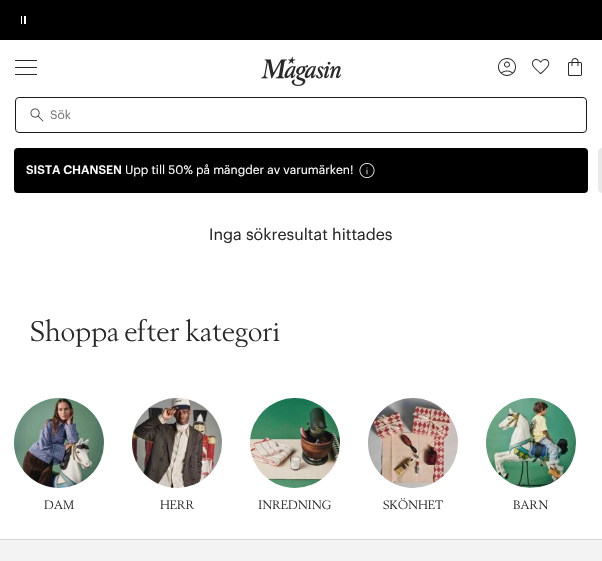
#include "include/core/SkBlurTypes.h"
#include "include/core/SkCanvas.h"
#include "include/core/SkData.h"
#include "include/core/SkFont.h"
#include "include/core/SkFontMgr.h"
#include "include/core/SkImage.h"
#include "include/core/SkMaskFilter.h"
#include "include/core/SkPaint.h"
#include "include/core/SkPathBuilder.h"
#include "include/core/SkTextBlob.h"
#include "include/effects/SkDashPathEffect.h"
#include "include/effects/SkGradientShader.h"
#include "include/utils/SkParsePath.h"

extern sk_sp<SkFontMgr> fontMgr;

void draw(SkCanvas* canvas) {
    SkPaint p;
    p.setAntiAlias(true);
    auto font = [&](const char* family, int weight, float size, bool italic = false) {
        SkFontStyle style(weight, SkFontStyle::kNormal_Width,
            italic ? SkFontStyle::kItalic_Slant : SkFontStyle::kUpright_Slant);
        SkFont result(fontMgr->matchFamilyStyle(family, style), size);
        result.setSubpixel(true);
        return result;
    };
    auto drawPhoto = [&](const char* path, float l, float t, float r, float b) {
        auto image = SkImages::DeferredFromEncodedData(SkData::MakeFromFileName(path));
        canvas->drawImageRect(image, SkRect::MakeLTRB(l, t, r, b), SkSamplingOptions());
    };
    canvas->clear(0xFFFFFFFF);
    {
        const struct { float l, t, r, b; SkColor color; } items[] = {
            {0, 0, 602, 40, 0xFF000000},
            {21, 16, 22, 24, 0xFFFFFFFF},
            {24, 16, 26, 24, 0xFFFFFFFF},
            {15, 60, 37, 61, 0xFF292929},
            {15, 67, 37, 68, 0xFF292929},
            {15, 74, 37, 75, 0xFF292929},
        };
        for (auto [l, t, r, b, color] : items) {
            p.setColor(color);
            canvas->drawRect(SkRect::MakeLTRB(l, t, r, b), p);
        }
    }
    drawPhoto("media/1.png", 261, 56, 341, 86);
    drawPhoto("media/2.png", 498, 58, 516, 76);
    drawPhoto("media/3.png", 532, 59, 550, 75);
    drawPhoto("media/4.png", 568, 58, 582, 76);
    p.setStyle(SkPaint::kStroke_Style);
    p.setStrokeWidth(1);
    p.setColor(0xFF1A1A1A);
    canvas->drawRoundRect(SkRect::MakeLTRB(15.5f, 97.5f, 586.5f, 132.5f), 3.5f, 3.5f, p);
    drawPhoto("media/5.png", 30, 108, 44, 122);
    auto font1 = font("Graphik", 400, 12);
    p.setStyle(SkPaint::kFill_Style);
    p.setColor(0xFF757575);
    canvas->drawString("Sök", 50, 119, font1, p);
    p.setColor(0xFF000000);
    canvas->drawRoundRect(SkRect::MakeLTRB(14, 148, 588, 193), 4, 4, p);
    auto font2 = font("Graphik", 500, 12);
    p.setColor(0xFFFFFFFF);
    canvas->drawString("SISTA CHANSEN", 26, 174, font2, p);
    canvas->drawString("Upp till 50% på mängder av varumärken!", 125, 174, font1, p);
    drawPhoto("media/6.png", 359, 163, 375, 178);
    p.setColor(0xFFE9E9E9);
    canvas->drawPath(SkPathBuilder().moveTo(602, 148).lineTo(602, 193).cubicTo(600, 193, 598, 191, 598, 189).lineTo(598, 152).cubicTo(598, 150, 600, 148, 602, 148).close().detach(), p);
    auto font3 = font("Graphik", 400, 16);
    p.setColor(0xFF292929);
    canvas->drawString("Inga sökresultat hittades", 209, 240, font3, p);
    auto font4 = font("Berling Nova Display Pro", 400, 28);
    canvas->drawString("Shoppa efter kategori", 30, 341, font4, p);
    drawPhoto("media/7.png", 14, 398, 104, 488);
    auto font5 = font("Berling Nova Display Pro", 400, 12);
    canvas->drawString("DAM", 44, 509, font5, p);
    drawPhoto("media/8.png", 132, 398, 222, 488);
    canvas->drawString("HERR", 160, 509, font5, p);
    drawPhoto("media/9.png", 250, 398, 340, 488);
    canvas->drawString("INREDNING", 258, 509, font5, p);
    drawPhoto("media/10.png", 368, 398, 458, 488);
    canvas->drawString("SKÖNHET", 383, 509, font5, p);
    drawPhoto("media/11.png", 486, 398, 576, 488);
    canvas->drawString("BARN", 513, 509, font5, p);
    p.setColor(0xFFF3F3F3);
    canvas->drawRect(SkRect::MakeLTRB(0, 540, 602, 561), p);
    p.setColor(0xFFD5D5D5);
    canvas->drawRect(SkRect::MakeLTRB(0, 539, 602, 540), p);
}
